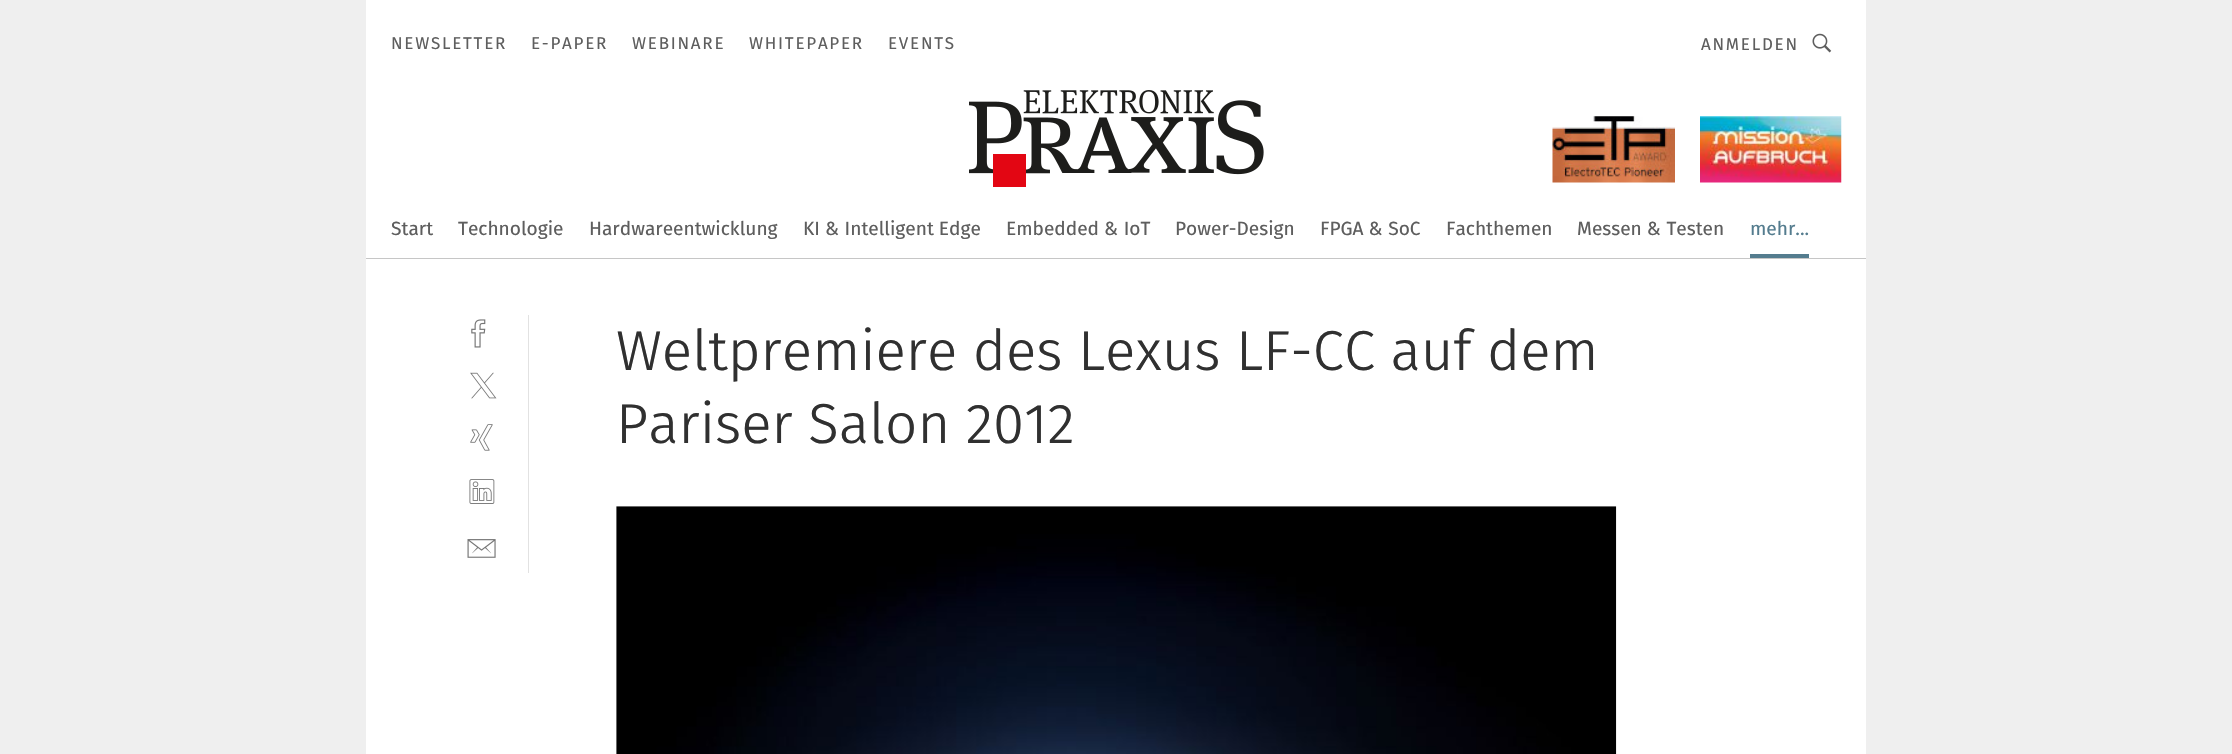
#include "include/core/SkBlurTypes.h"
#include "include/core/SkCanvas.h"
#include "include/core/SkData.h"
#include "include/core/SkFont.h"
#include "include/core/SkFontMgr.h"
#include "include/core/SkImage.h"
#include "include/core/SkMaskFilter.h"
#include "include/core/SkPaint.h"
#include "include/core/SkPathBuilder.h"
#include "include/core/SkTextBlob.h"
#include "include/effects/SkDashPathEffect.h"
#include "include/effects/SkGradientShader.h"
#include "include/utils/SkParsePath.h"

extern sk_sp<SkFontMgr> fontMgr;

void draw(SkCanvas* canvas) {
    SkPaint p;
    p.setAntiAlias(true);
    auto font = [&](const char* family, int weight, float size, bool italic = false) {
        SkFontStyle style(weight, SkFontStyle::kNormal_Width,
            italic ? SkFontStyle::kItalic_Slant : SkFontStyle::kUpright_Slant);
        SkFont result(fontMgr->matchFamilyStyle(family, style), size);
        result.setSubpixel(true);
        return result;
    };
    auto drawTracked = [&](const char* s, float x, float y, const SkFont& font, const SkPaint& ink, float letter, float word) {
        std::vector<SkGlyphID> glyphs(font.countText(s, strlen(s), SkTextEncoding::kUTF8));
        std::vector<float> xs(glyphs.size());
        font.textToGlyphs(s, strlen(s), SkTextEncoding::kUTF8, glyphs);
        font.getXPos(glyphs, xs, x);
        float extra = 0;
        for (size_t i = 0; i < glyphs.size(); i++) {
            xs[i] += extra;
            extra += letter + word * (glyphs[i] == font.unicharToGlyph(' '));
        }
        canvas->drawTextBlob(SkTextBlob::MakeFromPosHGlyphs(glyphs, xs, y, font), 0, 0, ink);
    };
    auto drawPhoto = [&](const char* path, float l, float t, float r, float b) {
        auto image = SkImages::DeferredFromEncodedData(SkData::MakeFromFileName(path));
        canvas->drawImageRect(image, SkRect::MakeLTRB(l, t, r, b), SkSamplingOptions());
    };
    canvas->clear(0xFFEFEFEF);
    p.setColor(0xFFFFFFFF);
    canvas->drawRect(SkRect::MakeLTRB(366, 0, 1866, 754), p);
    p.setColor(0xFFC6C6C6);
    canvas->drawRect(SkRect::MakeLTRB(366, 258, 1866, 259), p);
    auto font1 = font("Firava", 400, 17);
    p.setColor(0xFF5E5E5E);
    {
        const struct { const char* s; float x, y; } items[] = {
            {"NEWSLETTER", 391, 49},
            {"E-PAPER", 531, 49},
            {"WEBINARE", 632, 49},
            {"WHITEPAPER", 749, 49},
            {"EVENTS", 888, 49},
            {"ANMELDEN", 1701, 50},
        };
        for (auto [s, x, y] : items) {
            drawTracked(s, x, y, font1, p, 1.75f, 0);
        }
    }
    drawPhoto("media/1.png", 1812, 33, 1832, 53);
    drawPhoto("media/2.png", 969, 90, 1264, 187);
    drawPhoto("media/3.png", 1552, 116, 1675, 183);
    drawPhoto("media/4.png", 1700, 116, 1842, 183);
    auto font2 = font("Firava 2", 400, 19.1f);
    {
        const struct { const char* s; float x, y; } items[] = {
            {"Start", 391, 235},
            {"Technologie", 458, 235},
            {"Hardwareentwicklung", 589, 235},
            {"KI & Intelligent Edge", 803, 235},
            {"Embedded & IoT", 1006, 235},
            {"Power-Design", 1175, 235},
            {"FPGA & SoC", 1320, 235},
            {"Fachthemen", 1446, 235},
            {"Messen & Testen", 1577, 235},
        };
        for (auto [s, x, y] : items) {
            canvas->drawString(s, x, y, font2, p);
        }
    }
    p.setColor(0xFF547C8E);
    canvas->drawRect(SkRect::MakeLTRB(1750, 254, 1809, 258), p);
    canvas->drawString("mehr...", 1750, 235, font2, p);
    p.setColor(0xFFE2E2E2);
    canvas->drawRect(SkRect::MakeLTRB(528, 315, 529, 573), p);
    drawPhoto("media/5.png", 471, 319, 486, 348);
    drawPhoto("media/6.png", 470, 372, 497, 399);
    drawPhoto("media/7.png", 470, 424, 493, 451);
    drawPhoto("media/8.png", 469, 479, 495, 504);
    drawPhoto("media/9.png", 467, 539, 496, 558);
    auto font3 = font("Firava", 300, 56.25f);
    p.setColor(0xFF303030);
    canvas->drawString("Weltpremiere des Lexus LF-CC auf dem", 616, 370, font3, p);
    canvas->drawString("Pariser Salon 2012", 616, 443, font3, p);
    p.setColor(0xFFEFEFEF);
    canvas->drawRect(SkRect::MakeLTRB(616, 506, 1616, 754), p);
    drawPhoto("media/10.png", 616, 506, 1617, 754);
}
